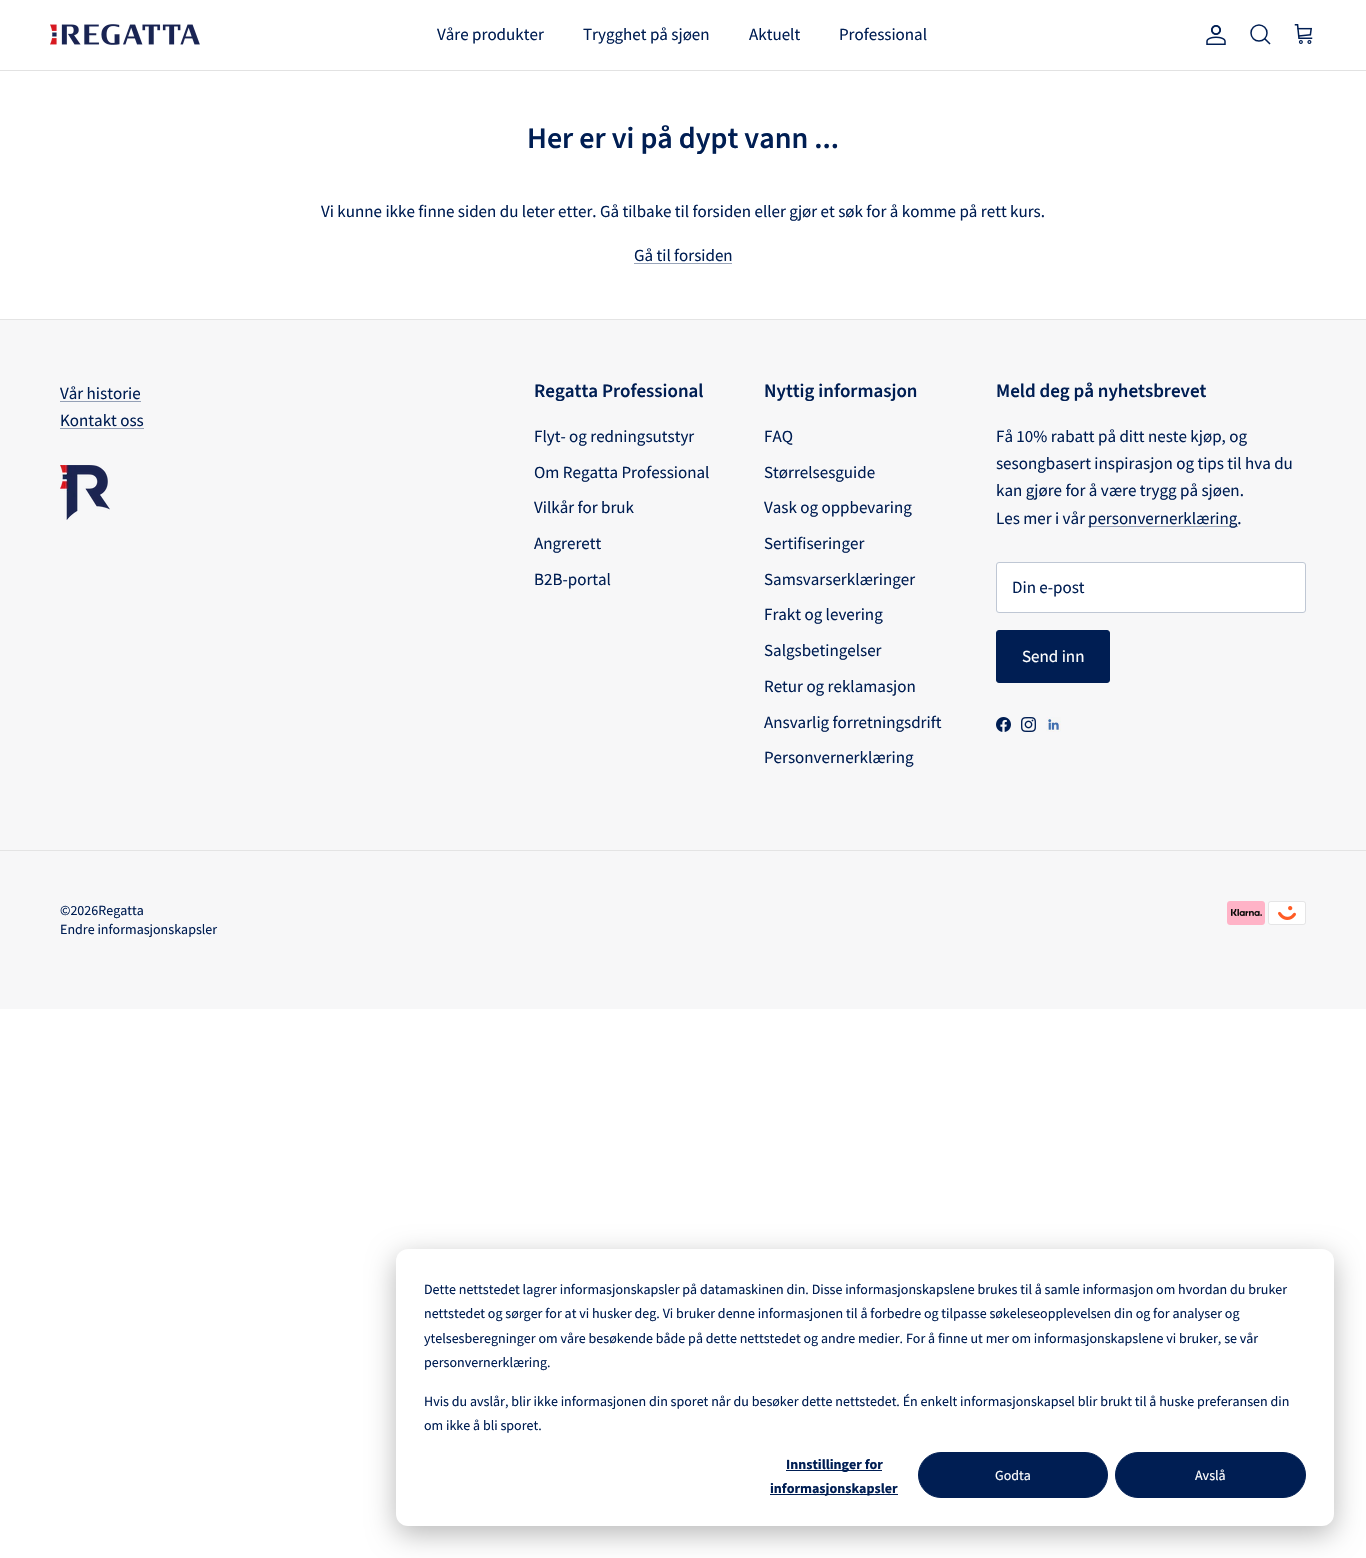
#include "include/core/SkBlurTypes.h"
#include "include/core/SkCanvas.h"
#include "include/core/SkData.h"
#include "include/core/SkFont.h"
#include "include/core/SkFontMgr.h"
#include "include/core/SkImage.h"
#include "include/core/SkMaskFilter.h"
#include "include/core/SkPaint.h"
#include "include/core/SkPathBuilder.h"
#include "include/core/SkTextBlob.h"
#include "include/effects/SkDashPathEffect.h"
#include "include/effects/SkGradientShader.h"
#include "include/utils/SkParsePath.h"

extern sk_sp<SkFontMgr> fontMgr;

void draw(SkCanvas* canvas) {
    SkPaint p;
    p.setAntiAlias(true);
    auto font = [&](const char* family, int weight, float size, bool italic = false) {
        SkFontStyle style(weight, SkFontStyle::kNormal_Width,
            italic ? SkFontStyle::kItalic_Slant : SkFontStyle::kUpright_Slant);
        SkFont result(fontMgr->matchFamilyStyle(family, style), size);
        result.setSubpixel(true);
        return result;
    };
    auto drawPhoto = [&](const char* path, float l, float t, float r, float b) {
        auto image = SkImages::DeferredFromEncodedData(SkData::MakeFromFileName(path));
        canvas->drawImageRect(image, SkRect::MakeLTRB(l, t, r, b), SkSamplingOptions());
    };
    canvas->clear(0xFFFFFFFF);
    p.setColor(0xFFE2E2E2);
    canvas->drawRect(SkRect::MakeLTRB(0, 70, 1366, 71), p);
    drawPhoto("media/1.png", 50, 24, 200, 45);
    auto font1 = font("Source Sans Pro", 400, 17);
    p.setColor(0xFF001E53);
    {
        const struct { const char* s; float x, y; } items[] = {
            {"Våre produkter", 437, 40},
            {"Trygghet på sjøen", 583, 40},
            {"Aktuelt", 749, 40},
            {"Professional", 839, 40},
        };
        for (auto [s, x, y] : items) {
            canvas->drawString(s, x, y, font1, p);
        }
    }
    drawPhoto("media/2.png", 1206, 25, 1226, 45);
    p.setStyle(SkPaint::kStroke_Style);
    p.setStrokeWidth(1.5f);
    canvas->drawCircle(1259, 33, 8, p);
    p.setStrokeCap(SkPaint::kSquare_Cap);
    canvas->drawPath(SkPathBuilder().moveTo(1265, 39).lineTo(1269.5f, 43.5f).detach(), p);
    drawPhoto("media/3.png", 1294, 24, 1313, 44);
    auto font2 = font("Source Sans Pro", 600, 30);
    p.setStyle(SkPaint::kFill_Style);
    canvas->drawString("Her er vi på dypt vann ...", 527, 148, font2, p);
    canvas->drawString("Vi kunne ikke finne siden du leter etter. Gå tilbake til forsiden eller gjør et søk for å komme på rett kurs.", 321, 217, font1, p);
    canvas->drawString("Gå til forsiden", 634, 261, font1, p);
    {
        const struct { float l, t, r, b; SkColor color; } items[] = {
            {634, 263, 732, 264, 0xFF99A5BA},
            {0, 320, 1366, 1009, 0xFFF7F7F8},
            {0, 319, 1366, 320, 0xFFE4E4E4},
        };
        for (auto [l, t, r, b, color] : items) {
            p.setColor(color);
            canvas->drawRect(SkRect::MakeLTRB(l, t, r, b), p);
        }
    }
    p.setColor(0xFF001E53);
    canvas->drawString("Vår historie", 60, 399, font1, p);
    p.setColor(0xFF94A0B6);
    canvas->drawRect(SkRect::MakeLTRB(60, 401, 141, 402), p);
    p.setColor(0xFF001E53);
    canvas->drawString("Kontakt oss", 60, 426, font1, p);
    p.setColor(0xFF94A0B6);
    canvas->drawRect(SkRect::MakeLTRB(60, 428, 144, 429), p);
    drawPhoto("media/4.png", 60, 465, 110, 520);
    auto font3 = font("Source Sans Pro", 600, 19);
    p.setColor(0xFF001E53);
    canvas->drawString("Regatta Professional", 534, 397, font3, p);
    {
        const struct { const char* s; float x, y; } items[] = {
            {"Flyt- og redningsutstyr", 534, 442},
            {"Om Regatta Professional", 534, 478},
            {"Vilkår for bruk", 534, 513},
            {"Angrerett", 534, 549},
            {"B2B-portal", 534, 585},
        };
        for (auto [s, x, y] : items) {
            canvas->drawString(s, x, y, font1, p);
        }
    }
    canvas->drawString("Nyttig informasjon", 764, 397, font3, p);
    {
        const struct { const char* s; float x, y; } items[] = {
            {"FAQ", 764, 442},
            {"Størrelsesguide", 764, 478},
            {"Vask og oppbevaring", 764, 513},
            {"Sertifiseringer", 764, 549},
            {"Samsvarserklæringer", 764, 585},
            {"Frakt og levering", 764, 620},
            {"Salgsbetingelser", 764, 656},
            {"Retur og reklamasjon", 764, 692},
            {"Ansvarlig forretningsdrift", 764, 728},
            {"Personvernerklæring", 764, 763},
        };
        for (auto [s, x, y] : items) {
            canvas->drawString(s, x, y, font1, p);
        }
    }
    canvas->drawString("Meld deg på nyhetsbrevet", 996, 397, font3, p);
    {
        const struct { const char* s; float x, y; } items[] = {
            {"Få 10% rabatt på ditt neste kjøp, og", 996, 442},
            {"sesongbasert inspirasjon og tips til hva du", 996, 469},
            {"kan gjøre for å være trygg på sjøen.", 996, 496},
            {"Les mer i vår", 996, 524},
        };
        for (auto [s, x, y] : items) {
            canvas->drawString(s, x, y, font1, p);
        }
    }
    p.setColor(0xFF94A0B6);
    canvas->drawRect(SkRect::MakeLTRB(1088, 526, 1238, 527), p);
    p.setColor(0xFF001E53);
    canvas->drawString("personvernerklæring.", 1088, 524, font1, p);
    p.setColor(0xFFFFFFFF);
    canvas->drawRoundRect(SkRect::MakeLTRB(996.5f, 562.5f, 1305.5f, 612.5f), 2.5f, 2.5f, p);
    p.setStyle(SkPaint::kStroke_Style);
    p.setStrokeWidth(1);
    p.setStrokeCap(SkPaint::kButt_Cap);
    p.setColor(0xFFBFC7D4);
    canvas->drawRoundRect(SkRect::MakeLTRB(996.5f, 562.5f, 1305.5f, 612.5f), 2.5f, 2.5f, p);
    p.setStyle(SkPaint::kFill_Style);
    p.setColor(0xFF001E53);
    canvas->drawString("Din e-post", 1012, 593, font1, p);
    canvas->drawRoundRect(SkRect::MakeLTRB(996.5f, 630.5f, 1109.5f, 682.5f), 2.5f, 2.5f, p);
    p.setStyle(SkPaint::kStroke_Style);
    canvas->drawRoundRect(SkRect::MakeLTRB(996.5f, 630.5f, 1109.5f, 682.5f), 2.5f, 2.5f, p);
    p.setStyle(SkPaint::kFill_Style);
    p.setColor(0xFFFFFFFF);
    canvas->drawString("Send inn", 1022, 662, font1, p);
    drawPhoto("media/5.png", 996, 717, 1011, 732);
    drawPhoto("media/6.png", 1021, 717, 1036, 732);
    drawPhoto("media/7.png", 1046, 717, 1061, 732);
    p.setColor(0xFFE4E4E4);
    canvas->drawRect(SkRect::MakeLTRB(0, 850, 1366, 851), p);
    auto font4 = font("Source Sans Pro", 400, 14);
    p.setColor(0xFF001E53);
    canvas->drawString("©2026Regatta", 60, 915, font4, p);
    canvas->drawString("Endre informasjonskapsler", 60, 934, font4, p);
    drawPhoto("media/8.png", 1227, 901, 1265, 925);
    drawPhoto("media/9.png", 1268, 901, 1306, 925);
    p.setColor(0x47000000);
    p.setMaskFilter(SkMaskFilter::MakeBlur(kNormal_SkBlurStyle, 14));
    canvas->drawRoundRect(SkRect::MakeLTRB(396, 1257, 1334, 1534), 12, 12, p);
    p.setMaskFilter(nullptr);
    p.setColor(0xFFFFFFFF);
    canvas->drawRoundRect(SkRect::MakeLTRB(396, 1249, 1334, 1526), 12, 12, p);
    p.setColor(0xFF001E53);
    {
        const struct { const char* s; float x, y; } items[] = {
            {"Dette nettstedet lagrer informasjonskapsler på datamaskinen din. Disse informasjonskapslene brukes til å samle informasjon om hvordan du bruker", 424, 1294},
            {"nettstedet og sørger for at vi husker deg. Vi bruker denne informasjonen til å forbedre og tilpasse søkeleseopplevelsen din og for analyser og", 424, 1318},
            {"ytelsesberegninger om våre besøkende både på dette nettstedet og andre medier. For å finne ut mer om informasjonskapslene vi bruker, se vår", 424, 1343},
            {"personvernerklæring.", 424, 1367},
            {"Hvis du avslår, blir ikke informasjonen din sporet når du besøker dette nettstedet. Én enkelt informasjonskapsel blir brukt til å huske preferansen din", 424, 1406},
            {"om ikke å bli sporet.", 424, 1430},
        };
        for (auto [s, x, y] : items) {
            canvas->drawString(s, x, y, font4, p);
        }
    }
    canvas->drawRect(SkRect::MakeLTRB(786, 1470, 882, 1471), p);
    auto font5 = font("Source Sans Pro", 700, 14);
    canvas->drawString("Innstillinger for", 786, 1469, font5, p);
    canvas->drawRect(SkRect::MakeLTRB(770, 1494, 898, 1495), p);
    canvas->drawString("informasjonskapsler", 770, 1493, font5, p);
    canvas->drawRoundRect(SkRect::MakeLTRB(918.5f, 1452.5f, 1107.5f, 1497.5f), 22.5f, 22.5f, p);
    p.setStyle(SkPaint::kStroke_Style);
    canvas->drawRoundRect(SkRect::MakeLTRB(918.5f, 1452.5f, 1107.5f, 1497.5f), 22.5f, 22.5f, p);
    p.setStyle(SkPaint::kFill_Style);
    p.setColor(0xFFFFFFFF);
    canvas->drawString("Godta", 995, 1480, font4, p);
    p.setColor(0xFF001E53);
    canvas->drawRoundRect(SkRect::MakeLTRB(1115.5f, 1452.5f, 1305.5f, 1497.5f), 22.5f, 22.5f, p);
    p.setStyle(SkPaint::kStroke_Style);
    canvas->drawRoundRect(SkRect::MakeLTRB(1115.5f, 1452.5f, 1305.5f, 1497.5f), 22.5f, 22.5f, p);
    p.setStyle(SkPaint::kFill_Style);
    p.setColor(0xFFFFFFFF);
    canvas->drawString("Avslå", 1195, 1480, font4, p);
}
